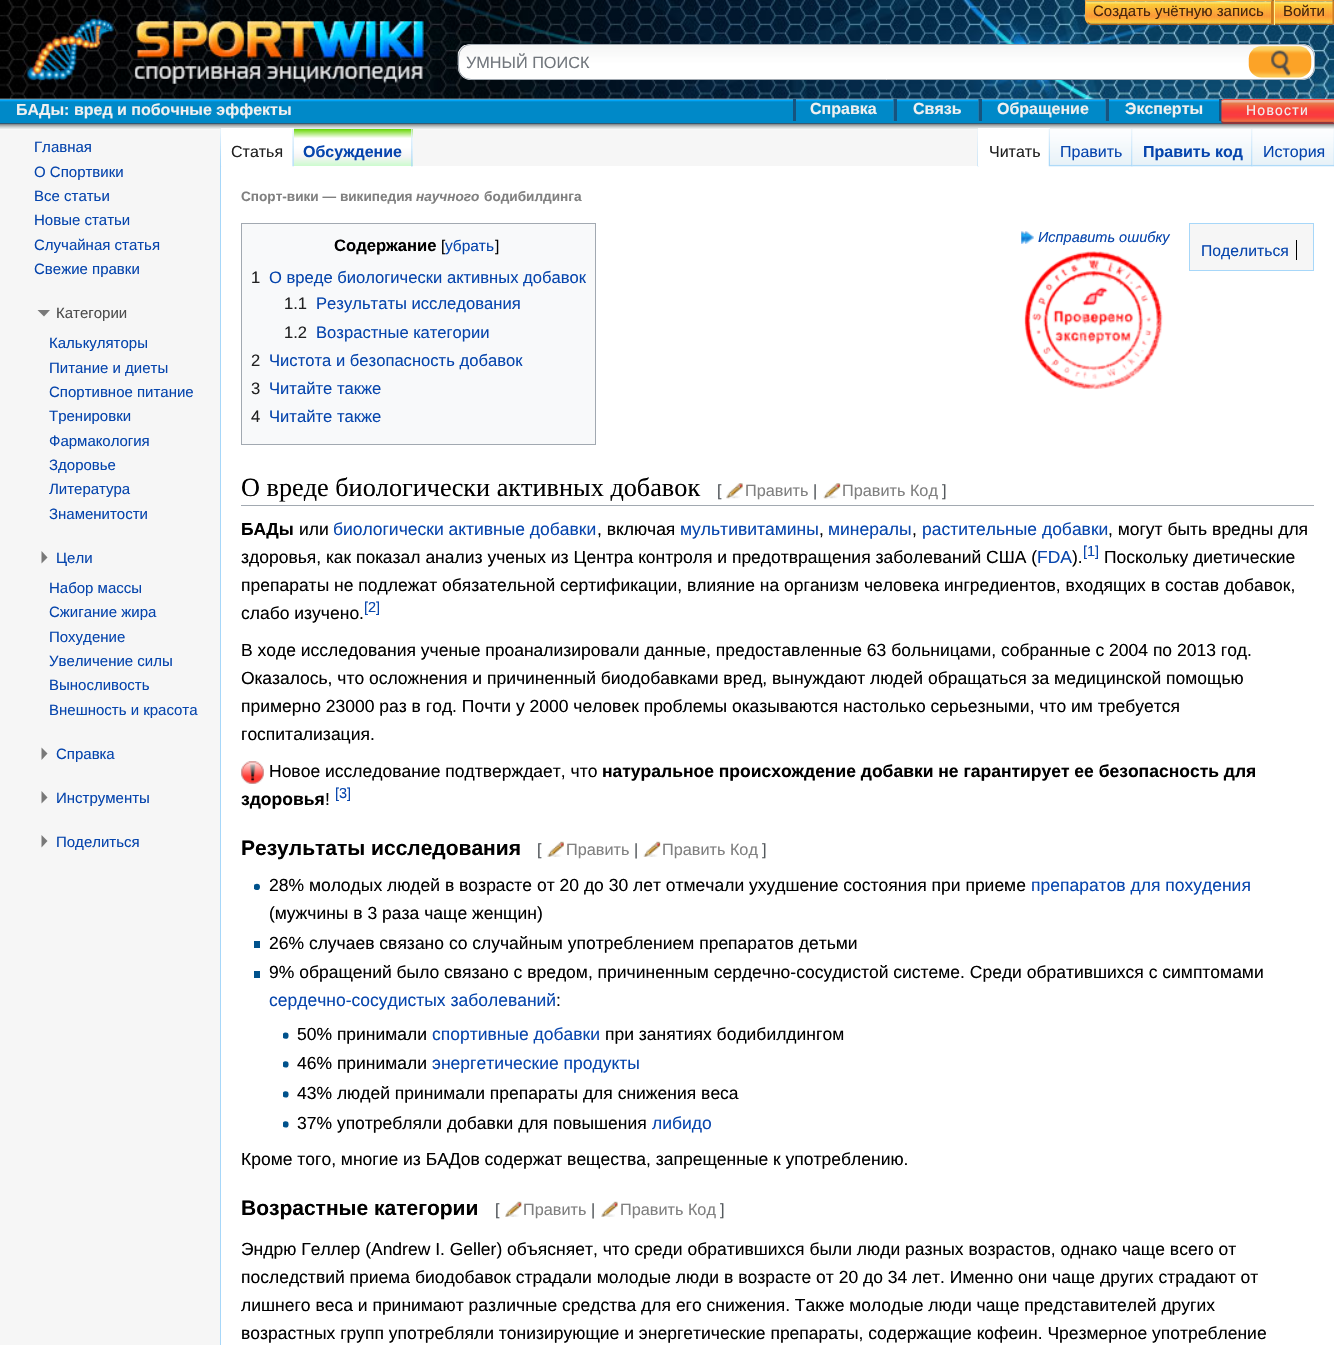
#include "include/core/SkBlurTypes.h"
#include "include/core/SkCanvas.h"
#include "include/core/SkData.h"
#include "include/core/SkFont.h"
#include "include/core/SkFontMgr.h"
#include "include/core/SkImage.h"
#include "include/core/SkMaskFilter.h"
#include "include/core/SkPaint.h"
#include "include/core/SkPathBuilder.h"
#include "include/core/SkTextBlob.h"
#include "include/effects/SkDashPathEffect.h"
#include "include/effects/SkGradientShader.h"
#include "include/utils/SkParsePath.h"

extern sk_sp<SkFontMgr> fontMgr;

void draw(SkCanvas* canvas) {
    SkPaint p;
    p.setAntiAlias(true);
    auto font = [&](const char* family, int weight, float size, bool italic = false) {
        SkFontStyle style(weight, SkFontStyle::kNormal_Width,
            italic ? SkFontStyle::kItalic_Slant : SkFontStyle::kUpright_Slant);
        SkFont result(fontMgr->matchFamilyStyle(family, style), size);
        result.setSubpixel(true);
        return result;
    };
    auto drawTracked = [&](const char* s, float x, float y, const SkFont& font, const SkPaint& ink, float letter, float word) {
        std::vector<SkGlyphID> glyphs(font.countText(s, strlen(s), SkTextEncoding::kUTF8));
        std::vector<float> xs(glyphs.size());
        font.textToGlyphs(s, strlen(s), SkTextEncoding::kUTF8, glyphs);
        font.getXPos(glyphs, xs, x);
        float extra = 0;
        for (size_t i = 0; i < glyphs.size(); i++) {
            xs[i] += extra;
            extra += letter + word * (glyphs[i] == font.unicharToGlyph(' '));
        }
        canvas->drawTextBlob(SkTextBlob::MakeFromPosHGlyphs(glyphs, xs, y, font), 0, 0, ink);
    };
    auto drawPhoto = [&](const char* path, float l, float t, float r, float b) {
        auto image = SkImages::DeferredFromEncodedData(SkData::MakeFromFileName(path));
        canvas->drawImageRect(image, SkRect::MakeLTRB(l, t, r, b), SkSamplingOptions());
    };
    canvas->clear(0xFFF6F6F6);
    {
        const SkColor colors[] = {0xFFFFFFFF, 0xFFF6F6F6};
        const float stops[] = {0.5f, 1};
        const SkPoint ends[] = {{668, 44}, {668, 144}};
        p.setShader(SkGradientShader::MakeLinear(ends, colors, stops, 2, SkTileMode::kClamp));
        p.setAlpha(255);
    }
    canvas->drawRect(SkRect::MakeLTRB(0, 98, 1334, 130), p);
    drawPhoto("media/4.png", 0, 0, 1334, 99);
    drawPhoto("media/1.png", 1085, 1, 1272, 24);
    p.setShader(nullptr);
    p.setColor(0xFFFAAC37);
    canvas->drawPath(SkPathBuilder().moveTo(1085, 0).lineTo(1086, 1).lineTo(1271, 1).lineTo(1274, 0).close().detach(), p);
    p.setColor(0xFFCD7B1F);
    canvas->drawPath(SkPathBuilder().moveTo(1274, 0).lineTo(1274, 25).lineTo(1271, 23.5f).lineTo(1271, 1.5f).close().detach(), p);
    p.setColor(0xFFAC5F17);
    canvas->drawPath(SkPathBuilder().moveTo(1274, 25).lineTo(1271, 24).lineTo(1091, 24).lineTo(1088, 22).lineTo(1087, 23).cubicTo(1088, 24, 1090, 25, 1092, 25).close().detach(), p);
    p.setColor(0xFFFBA83B);
    canvas->drawPath(SkPathBuilder().moveTo(1086, 1).lineTo(1085, 0).lineTo(1085, 18).cubicTo(1085, 20, 1086, 22, 1087, 23).lineTo(1088, 22).cubicTo(1087, 21, 1086, 19.5f, 1086, 18).close().detach(), p);
    auto font1 = font("Liberation Sans", 400, 15);
    p.setColor(0xFF47260D);
    canvas->drawString("Создать учётную запись", 1093, 16, font1, p);
    drawPhoto("media/2.png", 1273, 1, 1333, 24);
    p.setColor(0xFFFAAC37);
    canvas->drawPath(SkPathBuilder().moveTo(1274, 0).lineTo(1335, 0).lineTo(1332, 1).lineTo(1275, 1).close().detach(), p);
    p.setColor(0xFFCD7B1F);
    canvas->drawPath(SkPathBuilder().moveTo(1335, 0).lineTo(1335, 25).lineTo(1332.5f, 24).lineTo(1332.5f, 1).close().detach(), p);
    p.setColor(0xFFAC5F17);
    canvas->drawPath(SkPathBuilder().moveTo(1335, 25).lineTo(1274, 25).lineTo(1275, 24).lineTo(1332, 24).close().detach(), p);
    p.setColor(0xFFFEF391);
    canvas->drawRect(SkRect::MakeLTRB(1274, 0, 1275, 25), p);
    p.setColor(0xFF47260D);
    canvas->drawString("Войти", 1283, 16, font1, p);
    drawPhoto("media/3.png", 0, 100, 1334, 123);
    p.setColor(0xFF42A0CE);
    canvas->drawRect(SkRect::MakeLTRB(0, 99, 1225, 100), p);
    p.setColor(0xFF13496B);
    canvas->drawRect(SkRect::MakeLTRB(0, 123, 1224, 124), p);
    auto font2 = font("Liberation Sans", 700, 16);
    p.setColor(0xFFF0F0F0);
    canvas->drawString("БАДы: вред и побочные эффекты", 16, 115, font2, p);
    p.setColor(0xFF1D7CAF);
    canvas->drawRect(SkRect::MakeLTRB(893, 99, 894, 121), p);
    p.setColor(0xFF16547F);
    canvas->drawRect(SkRect::MakeLTRB(793, 99, 796, 121), p);
    p.setColor(0xFFF0F0F0);
    canvas->drawString("Справка", 810, 114, font2, p);
    p.setColor(0xFF1D7CAF);
    canvas->drawRect(SkRect::MakeLTRB(978, 99, 979, 121), p);
    p.setColor(0xFF16547F);
    canvas->drawRect(SkRect::MakeLTRB(894, 99, 897, 121), p);
    p.setColor(0xFFF0F0F0);
    canvas->drawString("Связь", 913, 114, font2, p);
    p.setColor(0xFF1D7CAF);
    canvas->drawRect(SkRect::MakeLTRB(1105, 99, 1106, 121), p);
    p.setColor(0xFF16547F);
    canvas->drawRect(SkRect::MakeLTRB(979, 99, 982, 121), p);
    p.setColor(0xFFF0F0F0);
    canvas->drawString("Обращение", 997, 114, font2, p);
    p.setColor(0xFF16547F);
    canvas->drawRect(SkRect::MakeLTRB(1219, 99, 1222, 121), p);
    canvas->drawRect(SkRect::MakeLTRB(1106, 99, 1109, 121), p);
    p.setColor(0xFFF0F0F0);
    canvas->drawString("Эксперты", 1125, 114, font2, p);
    drawPhoto("media/5.png", 1221, 100, 1334, 123);
    p.setColor(0xFFF9463B);
    canvas->drawPath(SkPathBuilder().moveTo(1225, 99).lineTo(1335, 99).lineTo(1334, 100).lineTo(1224, 100).lineTo(1221, 101).cubicTo(1221, 100, 1224, 99, 1225, 99).close().detach(), p);
    p.setColor(0xFFEC744F);
    canvas->drawPath(SkPathBuilder().moveTo(1334, 100).lineTo(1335, 99).lineTo(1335, 124).lineTo(1333, 122).lineTo(1334, 122).close().detach(), p);
    drawPhoto("media/6.png", 0, 123, 1334, 129);
    p.setColor(0xFF8E373C);
    canvas->drawPath(SkPathBuilder().moveTo(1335, 124).lineTo(1224, 124).cubicTo(1222, 124, 1221, 122, 1221, 121).lineTo(1224, 122).lineTo(1333, 122).close().detach(), p);
    auto font3 = font("Liberation Sans", 400, 14);
    p.setColor(0xFFF0F0F0);
    drawTracked("Новости", 1246, 115, font3, p, 1.25f, 0);
    p.setColor(0xFFFFFFFF);
    canvas->drawRect(SkRect::MakeLTRB(221, 166, 1334, 1345), p);
    p.setColor(0xFFA7D7F9);
    canvas->drawRect(SkRect::MakeLTRB(220, 166, 221, 1345), p);
    drawPhoto("media/7.png", 220, 128, 222, 167);
    drawPhoto("media/8.png", 411, 128, 413, 167);
    p.setColor(0xFFFFFFFF);
    canvas->drawRect(SkRect::MakeLTRB(221, 128, 294, 166), p);
    drawPhoto("media/9.png", 292, 129, 294, 167);
    auto font4 = font("Liberation Sans", 400, 16);
    p.setColor(0xFF222222);
    canvas->drawString("Статья", 231, 157, font4, p);
    {
        const SkColor colors[] = {0xFF66D600, 0xFFFFFFFF, 0xFFFFFFFF, 0xFFF5F5F5, 0xFFCCFBCE};
        const float stops[] = {0, 0.25f, 0.5f, 0.75f, 1};
        const SkPoint ends[] = {{353, 129}, {353, 166}};
        p.setShader(SkGradientShader::MakeLinear(ends, colors, stops, 5, SkTileMode::kClamp));
        p.setAlpha(255);
    }
    canvas->drawRect(SkRect::MakeLTRB(294, 129, 413, 166), p);
    drawPhoto("media/10.png", 411, 129, 413, 167);
    p.setShader(nullptr);
    p.setColor(0xFF0645AD);
    canvas->drawString("Обсуждение", 303, 157, font2, p);
    drawPhoto("media/11.png", 977, 128, 979, 167);
    drawPhoto("media/12.png", 1333, 166, 1334, 167);
    p.setColor(0xFFFFFFFF);
    canvas->drawRect(SkRect::MakeLTRB(978, 128, 1050, 166), p);
    drawPhoto("media/13.png", 1048, 128, 1050, 167);
    p.setColor(0xFF222222);
    canvas->drawString("Читать", 989, 157, font4, p);
    drawPhoto("media/14.png", 1050, 128, 1133, 167);
    drawPhoto("media/15.png", 1131, 129, 1133, 167);
    p.setColor(0xFF0645AD);
    canvas->drawString("Править", 1060, 157, font4, p);
    drawPhoto("media/16.png", 1132, 128, 1253, 167);
    drawPhoto("media/15.png", 1251, 129, 1253, 167);
    canvas->drawString("Править код", 1143, 157, font2, p);
    drawPhoto("media/17.png", 1252, 128, 1334, 167);
    drawPhoto("media/18.png", 1333, 129, 1334, 165);
    canvas->drawString("История", 1263, 157, font4, p);
    {
        const struct { const char* s; float x, y; } items[] = {
            {"Главная", 34, 152},
            {"О Спортвики", 34, 177},
            {"Все статьи", 34, 201},
            {"Новые статьи", 34, 225},
            {"Случайная статья", 34, 250},
            {"Свежие правки", 34, 274},
        };
        for (auto [s, x, y] : items) {
            canvas->drawString(s, x, y, font1, p);
        }
    }
    p.setColor(0xFF797979);
    canvas->drawPath(SkPathBuilder().moveTo(50, 310).lineTo(44, 316.5f).lineTo(37.5f, 310).close().detach(), p);
    p.setColor(0xFF4D4D4D);
    canvas->drawString("Категории", 56, 318, font1, p);
    p.setColor(0xFF0645AD);
    {
        const struct { const char* s; float x, y; } items[] = {
            {"Калькуляторы", 49, 348},
            {"Питание и диеты", 49, 373},
            {"Спортивное питание", 49, 397},
            {"Тренировки", 49, 421},
            {"Фармакология", 49, 446},
            {"Здоровье", 49, 470},
            {"Литература", 49, 494},
            {"Знаменитости", 49, 519},
        };
        for (auto [s, x, y] : items) {
            canvas->drawString(s, x, y, font1, p);
        }
    }
    p.setColor(0xFF797979);
    canvas->drawPath(SkPathBuilder().moveTo(41.5f, 551).lineTo(47.5f, 557.5f).lineTo(41.5f, 563.5f).close().detach(), p);
    p.setColor(0xFF0645AD);
    {
        const struct { const char* s; float x, y; } items[] = {
            {"Цели", 56, 563},
            {"Набор массы", 49, 593},
            {"Сжигание жира", 49, 617},
            {"Похудение", 49, 642},
            {"Увеличение силы", 49, 666},
            {"Выносливость", 49, 690},
            {"Внешность и красота", 49, 715},
        };
        for (auto [s, x, y] : items) {
            canvas->drawString(s, x, y, font1, p);
        }
    }
    p.setColor(0xFF797979);
    canvas->drawPath(SkPathBuilder().moveTo(41.5f, 747.5f).lineTo(47.5f, 753.5f).lineTo(41.5f, 760).close().detach(), p);
    p.setColor(0xFF0645AD);
    canvas->drawString("Справка", 56, 759, font1, p);
    p.setColor(0xFF797979);
    canvas->drawPath(SkPathBuilder().moveTo(41.5f, 791).lineTo(47.5f, 797.5f).lineTo(41.5f, 803.5f).close().detach(), p);
    p.setColor(0xFF0645AD);
    canvas->drawString("Инструменты", 56, 803, font1, p);
    p.setColor(0xFF797979);
    canvas->drawPath(SkPathBuilder().moveTo(41.5f, 835).lineTo(47.5f, 841).lineTo(41.5f, 847.5f).close().detach(), p);
    p.setColor(0xFF0645AD);
    canvas->drawString("Поделиться", 56, 847, font1, p);
    p.setColor(0xFFFFFFFF);
    canvas->drawRoundRect(SkRect::MakeLTRB(458, 44, 1315, 80), 13, 13, p);
    drawPhoto("media/19.png", 457, 45, 1315, 65);
    p.setStyle(SkPaint::kStroke_Style);
    p.setStrokeWidth(1);
    p.setColor(0xFFA2A9B1);
    canvas->drawRoundRect(SkRect::MakeLTRB(458.5f, 44.5f, 1314.5f, 79.5f), 12.5f, 12.5f, p);
    auto font5 = font("Liberation Sans", 400, 16.25f);
    p.setStyle(SkPaint::kFill_Style);
    p.setColor(0xFF72777D);
    canvas->drawString("УМНЫЙ ПОИСК", 466, 68, font5, p);
    drawPhoto("media/20.png", 1248, 46, 1312, 78);
    auto font6 = font("Liberation Sans", 700, 13.6f);
    p.setColor(0xFF808080);
    canvas->drawString("Спорт-вики — википедия", 241, 201, font6, p);
    auto font7 = font("Liberation Sans", 700, 13.6f, true);
    canvas->drawString("научного", 416, 201, font7, p);
    canvas->drawString("бодибилдинга", 484, 201, font6, p);
    p.setColor(0xFFF8F9FA);
    canvas->drawRect(SkRect::MakeLTRB(241.5f, 223.5f, 595.5f, 444.5f), p);
    p.setStyle(SkPaint::kStroke_Style);
    p.setColor(0xFFA2A9B1);
    canvas->drawRect(SkRect::MakeLTRB(241.5f, 223.5f, 595.5f, 444.5f), p);
    auto font8 = font("Liberation Sans", 700, 16.6f);
    p.setStyle(SkPaint::kFill_Style);
    p.setColor(0xFF000000);
    canvas->drawString("Содержание", 334, 251, font8, p);
    auto font9 = font("Liberation Sans", 400, 15.5f);
    canvas->drawString("[", 441, 251, font9, p);
    p.setColor(0xFF0645AD);
    canvas->drawString("убрать", 445, 251, font9, p);
    p.setColor(0xFF000000);
    canvas->drawString("]", 495, 251, font9, p);
    auto font10 = font("Liberation Sans", 400, 16.6f);
    p.setColor(0xFF222222);
    canvas->drawString("1", 251, 283, font10, p);
    p.setColor(0xFF0645AD);
    canvas->drawString("О вреде биологически активных добавок", 269, 283, font10, p);
    p.setColor(0xFF222222);
    canvas->drawString("1.1", 284, 309, font10, p);
    p.setColor(0xFF0645AD);
    canvas->drawString("Результаты исследования", 316, 309, font10, p);
    p.setColor(0xFF222222);
    canvas->drawString("1.2", 284, 338, font10, p);
    p.setColor(0xFF0645AD);
    canvas->drawString("Возрастные категории", 316, 338, font10, p);
    p.setColor(0xFF222222);
    canvas->drawString("2", 251, 366, font10, p);
    p.setColor(0xFF0645AD);
    canvas->drawString("Чистота и безопасность добавок", 269, 366, font10, p);
    p.setColor(0xFF222222);
    canvas->drawString("3", 251, 394, font10, p);
    p.setColor(0xFF0645AD);
    canvas->drawString("Читайте также", 269, 394, font10, p);
    p.setColor(0xFF222222);
    canvas->drawString("4", 251, 422, font10, p);
    p.setColor(0xFF0645AD);
    canvas->drawString("Читайте также", 269, 422, font10, p);
    drawPhoto("media/21.png", 1021, 231, 1034, 244);
    auto font11 = font("Liberation Sans", 400, 14.5f, true);
    canvas->drawString("Исправить ошибку", 1038, 242, font11, p);
    drawPhoto("media/22.png", 1024, 251, 1163, 390);
    p.setColor(0xFFA2A9B1);
    canvas->drawRect(SkRect::MakeLTRB(241, 505, 1314, 506), p);
    auto font12 = font("Liberation Serif", 400, 26.25f);
    p.setColor(0xFF000000);
    canvas->drawString("О вреде биологически активных добавок", 241, 496, font12, p);
    p.setColor(0xFF54595D);
    canvas->drawString("[", 717, 496, font5, p);
    drawPhoto("media/23.png", 726, 483, 743, 499);
    p.setColor(0xFF808080);
    canvas->drawString("Править", 745, 496, font5, p);
    p.setColor(0xFF54595D);
    canvas->drawString("|", 813, 496, font5, p);
    drawPhoto("media/24.png", 823, 483, 841, 499);
    p.setColor(0xFF808080);
    canvas->drawString("Править Код", 842, 496, font5, p);
    p.setColor(0xFF54595D);
    canvas->drawString("]", 942, 496, font5, p);
    auto font13 = font("Liberation Sans", 700, 17.5f);
    p.setColor(0xFF000000);
    canvas->drawString("БАДы", 241, 535, font13, p);
    auto font14 = font("Liberation Sans", 400, 17.5f);
    canvas->drawString("или", 299, 535, font14, p);
    p.setColor(0xFF0645AD);
    canvas->drawString("биологически активные добавки", 333, 535, font14, p);
    p.setColor(0xFF000000);
    canvas->drawString(", включая", 597, 535, font14, p);
    p.setColor(0xFF0645AD);
    canvas->drawString("мультивитамины", 680, 535, font14, p);
    p.setColor(0xFF000000);
    canvas->drawString(",", 819, 535, font14, p);
    p.setColor(0xFF0645AD);
    canvas->drawString("минералы", 828, 535, font14, p);
    p.setColor(0xFF000000);
    canvas->drawString(",", 912, 535, font14, p);
    p.setColor(0xFF0645AD);
    canvas->drawString("растительные добавки", 922, 535, font14, p);
    p.setColor(0xFF000000);
    canvas->drawString(", могут быть вредны для", 1108, 535, font14, p);
    canvas->drawString("здоровья, как показал анализ ученых из Центра контроля и предотвращения заболеваний США (", 241, 563, font14, p);
    p.setColor(0xFF0645AD);
    canvas->drawString("FDA", 1037, 563, font14, p);
    p.setColor(0xFF000000);
    canvas->drawString(").", 1072, 563, font14, p);
    auto font15 = font("Liberation Sans", 400, 14.5f);
    p.setColor(0xFF0645AD);
    canvas->drawString("[1]", 1083, 556, font15, p);
    p.setColor(0xFF000000);
    {
        const struct { const char* s; float x, y; } items[] = {
            {"Поскольку диетические", 1104, 563},
            {"препараты не подлежат обязательной сертификации, влияние на организм человека ингредиентов, входящих в состав добавок,", 241, 591},
            {"слабо изучено.", 241, 619},
        };
        for (auto [s, x, y] : items) {
            canvas->drawString(s, x, y, font14, p);
        }
    }
    p.setColor(0xFF0645AD);
    canvas->drawString("[2]", 364, 612, font15, p);
    p.setColor(0xFF000000);
    {
        const struct { const char* s; float x, y; } items[] = {
            {"В ходе исследования ученые проанализировали данные, предоставленные 63 больницами, собранные с 2004 по 2013 год.", 241, 656},
            {"Оказалось, что осложнения и причиненный биодобавками вред, вынуждают людей обращаться за медицинской помощью", 241, 684},
            {"примерно 23000 раз в год. Почти у 2000 человек проблемы оказываются настолько серьезными, что им требуется", 241, 712},
            {"госпитализация.", 241, 740},
        };
        for (auto [s, x, y] : items) {
            canvas->drawString(s, x, y, font14, p);
        }
    }
    drawPhoto("media/25.png", 241, 761, 264, 784);
    canvas->drawString("Новое исследование подтверждает, что", 269, 777, font14, p);
    canvas->drawString("натуральное происхождение добавки не гарантирует ее безопасность для", 602, 777, font13, p);
    canvas->drawString("здоровья", 241, 805, font13, p);
    canvas->drawString("!", 325, 805, font14, p);
    p.setColor(0xFF0645AD);
    canvas->drawString("[3]", 335, 798, font15, p);
    auto font16 = font("Liberation Sans", 700, 21);
    p.setColor(0xFF000000);
    canvas->drawString("Результаты исследования", 241, 855, font16, p);
    p.setColor(0xFF54595D);
    canvas->drawString("[", 537, 855, font5, p);
    drawPhoto("media/26.png", 547, 841, 564, 857);
    p.setColor(0xFF808080);
    canvas->drawString("Править", 566, 855, font5, p);
    p.setColor(0xFF54595D);
    canvas->drawString("|", 634, 855, font5, p);
    drawPhoto("media/27.png", 643, 841, 661, 857);
    p.setColor(0xFF808080);
    canvas->drawString("Править Код", 662, 855, font5, p);
    p.setColor(0xFF54595D);
    canvas->drawString("]", 762, 855, font5, p);
    drawPhoto("media/28.png", 254, 883, 260, 890);
    p.setColor(0xFF000000);
    canvas->drawString("28% молодых людей в возрасте от 20 до 30 лет отмечали ухудшение состояния при приеме", 269, 891, font14, p);
    p.setColor(0xFF0645AD);
    canvas->drawString("препаратов для похудения", 1031, 891, font14, p);
    p.setColor(0xFF000000);
    canvas->drawString("(мужчины в 3 раза чаще женщин)", 269, 919, font14, p);
    p.setColor(0xFF00528C);
    canvas->drawRect(SkRect::MakeLTRB(254, 941, 260, 948), p);
    p.setColor(0xFF000000);
    canvas->drawString("26% случаев связано со случайным употреблением препаратов детьми", 269, 949, font14, p);
    p.setColor(0xFF00528C);
    canvas->drawRect(SkRect::MakeLTRB(254, 971, 260, 978), p);
    p.setColor(0xFF000000);
    canvas->drawString("9% обращений было связано с вредом, причиненным сердечно-сосудистой системе. Среди обратившихся с симптомами", 269, 978, font14, p);
    p.setColor(0xFF0645AD);
    canvas->drawString("сердечно-сосудистых заболеваний", 269, 1006, font14, p);
    p.setColor(0xFF000000);
    canvas->drawString(":", 556, 1006, font14, p);
    drawPhoto("media/29.png", 283, 1032, 289, 1039);
    canvas->drawString("50% принимали", 297, 1040, font14, p);
    p.setColor(0xFF0645AD);
    canvas->drawString("спортивные добавки", 432, 1040, font14, p);
    p.setColor(0xFF000000);
    canvas->drawString("при занятиях бодибилдингом", 605, 1040, font14, p);
    drawPhoto("media/30.png", 283, 1061, 289, 1068);
    canvas->drawString("46% принимали", 297, 1069, font14, p);
    p.setColor(0xFF0645AD);
    canvas->drawString("энергетические продукты", 432, 1069, font14, p);
    drawPhoto("media/30.png", 283, 1091, 289, 1098);
    p.setColor(0xFF000000);
    canvas->drawString("43% людей принимали препараты для снижения веса", 297, 1099, font14, p);
    drawPhoto("media/30.png", 283, 1121, 289, 1128);
    canvas->drawString("37% употребляли добавки для повышения", 297, 1129, font14, p);
    p.setColor(0xFF0645AD);
    canvas->drawString("либидо", 652, 1129, font14, p);
    p.setColor(0xFF000000);
    canvas->drawString("Кроме того, многие из БАДов содержат вещества, запрещенные к употреблению.", 241, 1165, font14, p);
    canvas->drawString("Возрастные категории", 241, 1215, font16, p);
    p.setColor(0xFF54595D);
    canvas->drawString("[", 495, 1215, font5, p);
    drawPhoto("media/31.png", 505, 1201, 522, 1217);
    p.setColor(0xFF808080);
    canvas->drawString("Править", 523, 1215, font5, p);
    p.setColor(0xFF54595D);
    canvas->drawString("|", 591, 1215, font5, p);
    drawPhoto("media/32.png", 601, 1201, 618, 1217);
    p.setColor(0xFF808080);
    canvas->drawString("Править Код", 620, 1215, font5, p);
    p.setColor(0xFF54595D);
    canvas->drawString("]", 720, 1215, font5, p);
    p.setColor(0xFF000000);
    {
        const struct { const char* s; float x, y; } items[] = {
            {"Эндрю Геллер (Andrew I. Geller) объясняет, что среди обратившихся были люди разных возрастов, однако чаще всего от", 241, 1255},
            {"последствий приема биодобавок страдали молодые люди в возрасте от 20 до 34 лет. Именно они чаще других страдают от", 241, 1283},
            {"лишнего веса и принимают различные средства для его снижения. Также молодые люди чаще представителей других", 241, 1311},
            {"возрастных групп употребляли тонизирующие и энергетические препараты, содержащие кофеин. Чрезмерное употребление", 241, 1339},
        };
        for (auto [s, x, y] : items) {
            canvas->drawString(s, x, y, font14, p);
        }
    }
    p.setColor(0xFFF6F6F6);
    canvas->drawRect(SkRect::MakeLTRB(1189.5f, 223.5f, 1313.5f, 270.5f), p);
    p.setStyle(SkPaint::kStroke_Style);
    p.setColor(0xFFA7D7F9);
    canvas->drawRect(SkRect::MakeLTRB(1189.5f, 223.5f, 1313.5f, 270.5f), p);
    auto font17 = font("Liberation Sans", 400, 15.75f);
    p.setStyle(SkPaint::kFill_Style);
    p.setColor(0xFF0645AD);
    canvas->drawString("Поделиться", 1201, 256, font17, p);
    p.setColor(0xFF000000);
    canvas->drawRect(SkRect::MakeLTRB(1296, 240, 1297, 260), p);
}
